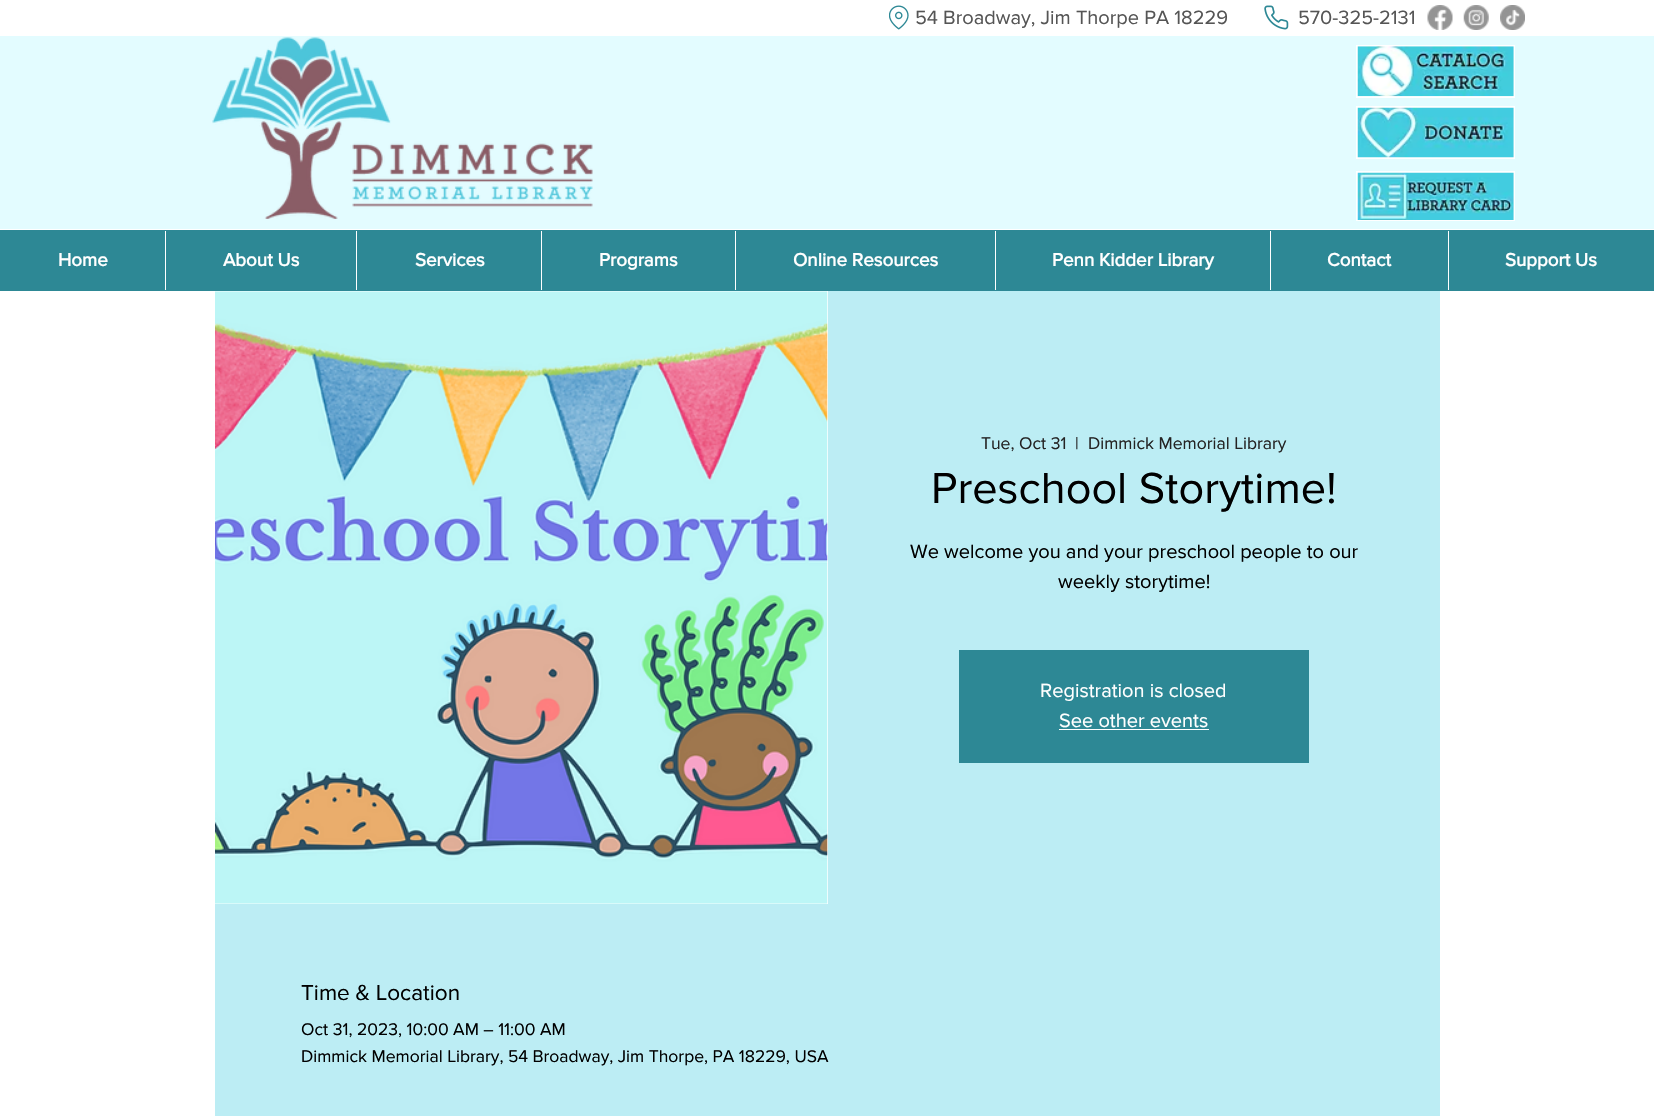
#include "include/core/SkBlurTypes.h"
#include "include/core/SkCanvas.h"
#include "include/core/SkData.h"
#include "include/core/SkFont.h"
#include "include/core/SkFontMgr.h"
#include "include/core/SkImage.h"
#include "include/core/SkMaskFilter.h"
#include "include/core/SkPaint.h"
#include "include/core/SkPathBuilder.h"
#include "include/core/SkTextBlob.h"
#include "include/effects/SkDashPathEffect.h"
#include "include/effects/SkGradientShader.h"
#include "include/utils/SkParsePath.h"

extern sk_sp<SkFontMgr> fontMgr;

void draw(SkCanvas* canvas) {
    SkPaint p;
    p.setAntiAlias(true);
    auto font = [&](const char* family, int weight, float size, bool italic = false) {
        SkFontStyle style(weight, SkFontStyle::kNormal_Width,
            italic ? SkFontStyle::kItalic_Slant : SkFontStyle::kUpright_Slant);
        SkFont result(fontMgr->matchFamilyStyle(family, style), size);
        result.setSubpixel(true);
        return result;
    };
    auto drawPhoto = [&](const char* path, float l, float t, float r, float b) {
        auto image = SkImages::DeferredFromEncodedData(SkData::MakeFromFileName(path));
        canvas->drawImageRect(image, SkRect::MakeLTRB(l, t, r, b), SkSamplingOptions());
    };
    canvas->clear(0xFFFFFFFF);
    drawPhoto("media/1.png", 889, 5, 909, 30);
    auto font1 = font("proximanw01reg", 400, 20);
    p.setColor(0xFF555555);
    canvas->drawString("54 Broadway, Jim Thorpe PA 18229", 915, 24, font1, p);
    drawPhoto("media/2.png", 1264, 5, 1289, 30);
    canvas->drawString("570-325-2131", 1298, 24, font1, p);
    drawPhoto("media/3.png", 1427, 5, 1453, 30);
    drawPhoto("media/4.png", 1463, 5, 1489, 30);
    drawPhoto("media/5.png", 1500, 5, 1525, 30);
    p.setColor(0xFFE3FCFF);
    canvas->drawRect(SkRect::MakeLTRB(0, 36, 1654, 229), p);
    drawPhoto("media/6.png", 212, 37, 593, 219);
    p.setColor(0xFFFFFFFF);
    canvas->drawRect(SkRect::MakeLTRB(1356, 45, 1515, 98), p);
    drawPhoto("media/7.png", 1357, 46, 1514, 97);
    canvas->drawRect(SkRect::MakeLTRB(1356, 106, 1515, 159), p);
    drawPhoto("media/8.png", 1357, 107, 1514, 158);
    canvas->drawRect(SkRect::MakeLTRB(1356, 171, 1515, 221), p);
    drawPhoto("media/9.png", 1357, 172, 1514, 220);
    p.setColor(0xFF2D8895);
    canvas->drawRect(SkRect::MakeLTRB(0, 230, 1654, 291), p);
    auto font2 = font("proximanw01reg", 700, 18.75f);
    p.setColor(0xFFFFFFFF);
    canvas->drawString("Home", 58, 266, font2, p);
    canvas->drawRect(SkRect::MakeLTRB(165, 231, 166, 290), p);
    canvas->drawString("About Us", 223, 266, font2, p);
    canvas->drawRect(SkRect::MakeLTRB(356, 231, 357, 290), p);
    canvas->drawString("Services", 415, 266, font2, p);
    canvas->drawRect(SkRect::MakeLTRB(541, 231, 542, 290), p);
    canvas->drawString("Programs", 599, 266, font2, p);
    canvas->drawRect(SkRect::MakeLTRB(735, 231, 736, 290), p);
    canvas->drawString("Online Resources", 793, 266, font2, p);
    canvas->drawRect(SkRect::MakeLTRB(995, 231, 996, 290), p);
    canvas->drawString("Penn Kidder Library", 1052, 266, font2, p);
    canvas->drawRect(SkRect::MakeLTRB(1270, 231, 1271, 290), p);
    canvas->drawString("Contact", 1327, 266, font2, p);
    canvas->drawRect(SkRect::MakeLTRB(1448, 231, 1449, 290), p);
    canvas->drawString("Support Us", 1505, 266, font2, p);
    p.setColor(0xFFBCEDF4);
    canvas->drawRect(SkRect::MakeLTRB(215, 291, 1440, 1116), p);
    p.setColor(0xFFFFFFFF);
    canvas->drawRect(SkRect::MakeLTRB(215, 291, 828, 904), p);
    drawPhoto("media/10.png", 215, 291, 828, 904);
    auto font3 = font("proximanw01reg", 400, 17.5f);
    p.setColor(0xFF242323);
    {
        const struct { const char* s; float x, y; } items[] = {
            {"Tue, Oct 31", 981, 449},
            {"|", 1075, 449},
            {"Dimmick Memorial Library", 1088, 449},
        };
        for (auto [s, x, y] : items) {
            canvas->drawString(s, x, y, font3, p);
        }
    }
    auto font4 = font("proximanw01reg", 400, 45);
    p.setColor(0xFF000000);
    canvas->drawString("Preschool Storytime!", 931, 503, font4, p);
    canvas->drawString("We welcome you and your preschool people to our", 910, 558, font1, p);
    canvas->drawString("weekly storytime!", 1058, 588, font1, p);
    p.setColor(0xFF2D8895);
    canvas->drawRect(SkRect::MakeLTRB(959, 650, 1309, 763), p);
    p.setColor(0xFFFFFFFF);
    canvas->drawString("Registration is closed", 1040, 697, font1, p);
    canvas->drawString("See other events", 1059, 727, font1, p);
    canvas->drawRect(SkRect::MakeLTRB(1059, 729, 1209, 730), p);
    auto font5 = font("proximanw01reg", 400, 22.5f);
    p.setColor(0xFF000000);
    canvas->drawString("Time & Location", 301, 1000, font5, p);
    canvas->drawString("Oct 31, 2023, 10:00 AM – 11:00 AM", 301, 1035, font3, p);
    canvas->drawString("Dimmick Memorial Library, 54 Broadway, Jim Thorpe, PA 18229, USA", 301, 1062, font3, p);
}
